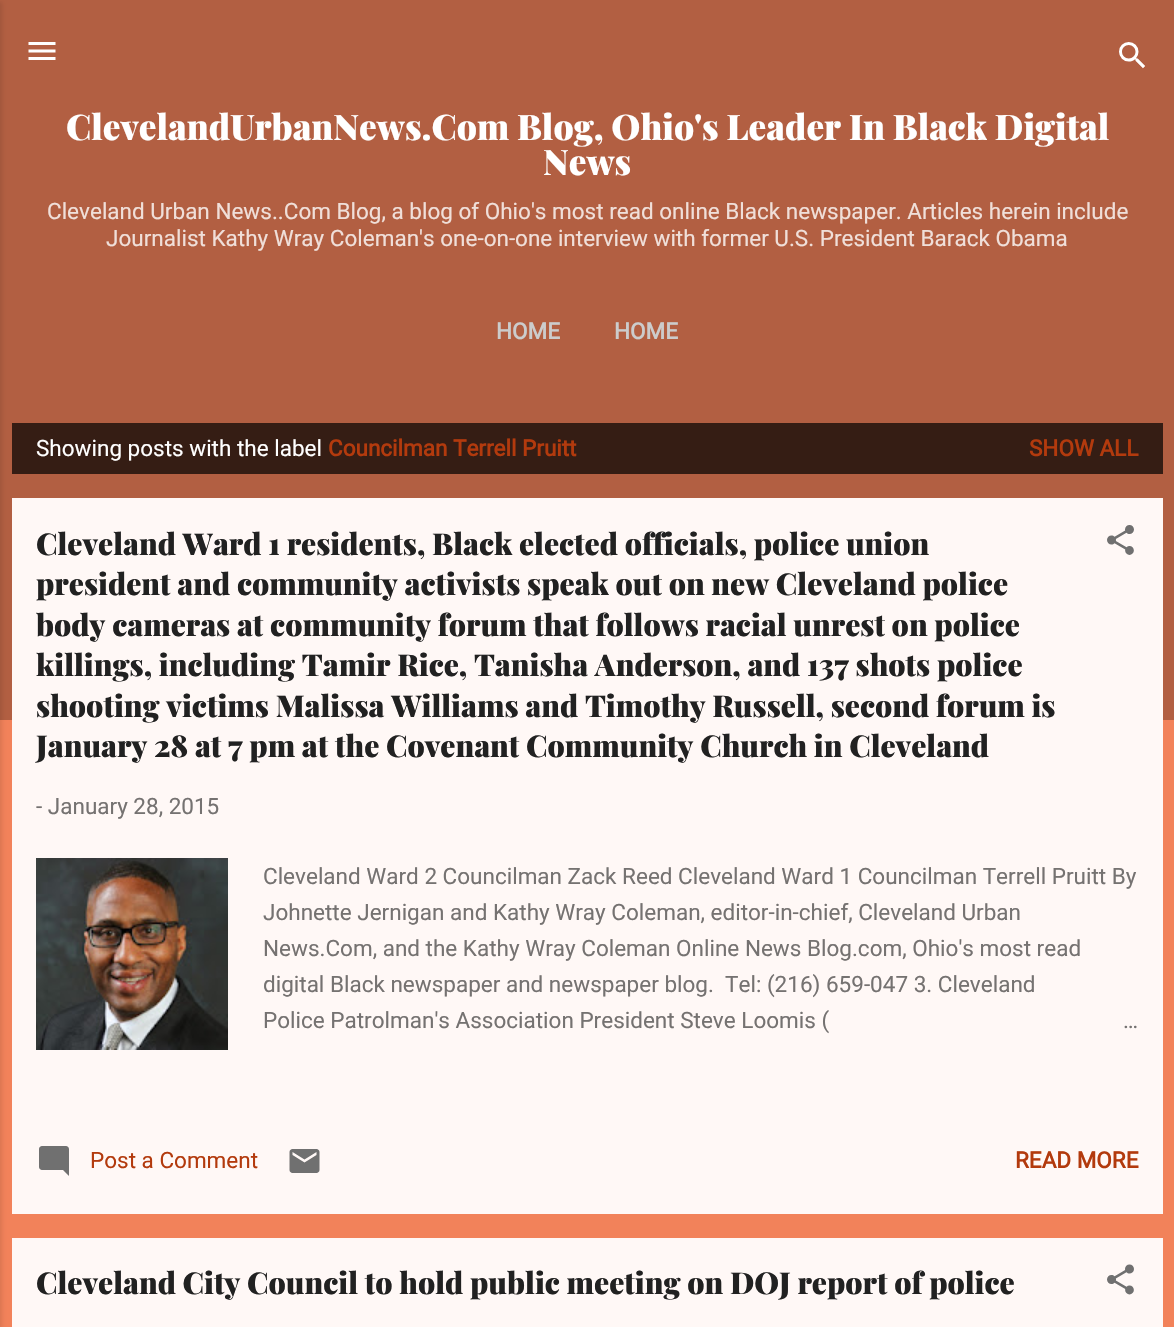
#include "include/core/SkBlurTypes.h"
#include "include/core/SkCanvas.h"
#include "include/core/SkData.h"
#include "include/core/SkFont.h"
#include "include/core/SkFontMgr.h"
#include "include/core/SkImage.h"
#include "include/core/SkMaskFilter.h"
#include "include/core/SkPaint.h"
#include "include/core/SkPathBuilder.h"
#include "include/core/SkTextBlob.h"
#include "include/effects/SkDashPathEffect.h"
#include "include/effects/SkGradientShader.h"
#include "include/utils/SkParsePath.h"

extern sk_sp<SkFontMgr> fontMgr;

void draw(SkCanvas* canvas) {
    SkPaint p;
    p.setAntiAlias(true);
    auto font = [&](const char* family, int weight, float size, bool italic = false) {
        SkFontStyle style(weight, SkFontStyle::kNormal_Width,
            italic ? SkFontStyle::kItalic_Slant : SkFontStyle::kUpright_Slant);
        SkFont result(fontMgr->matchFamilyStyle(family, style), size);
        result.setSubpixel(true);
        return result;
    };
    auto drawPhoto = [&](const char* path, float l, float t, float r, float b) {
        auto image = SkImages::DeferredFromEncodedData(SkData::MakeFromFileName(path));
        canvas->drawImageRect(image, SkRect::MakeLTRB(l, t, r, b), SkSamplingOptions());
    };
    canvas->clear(0xFFF2825A);
    p.setColor(0xFFB25F42);
    canvas->drawRect(SkRect::MakeLTRB(0, 0, 1174, 720), p);
    p.setColor(0x1A000000);
    p.setMaskFilter(SkMaskFilter::MakeBlur(kNormal_SkBlurStyle, 2));
    canvas->drawRect(SkRect::MakeLTRB(-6, 2, 2, 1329), p);
    p.setMaskFilter(nullptr);
    drawPhoto("media/1.png", 28, 42, 56, 60);
    drawPhoto("media/2.png", 1119, 42, 1145, 69);
    auto font1 = font("Playfair Display", 900, 35.2f);
    p.setColor(0xFFFFFFFF);
    canvas->drawString("ClevelandUrbanNews.Com Blog, Ohio's Leader In Black Digital", 66, 140, font1, p);
    canvas->drawString("News", 543, 175, font1, p);
    auto font2 = font("Roboto", 400, 22.5f);
    p.setColor(0xFFF0DFD9);
    canvas->drawString("Cleveland Urban News..Com Blog, a blog of Ohio's most read online Black newspaper. Articles herein include", 47, 219, font2, p);
    canvas->drawString("Journalist Kathy Wray Coleman's one-on-one interview with former U.S. President Barack Obama", 106, 246, font2, p);
    auto font3 = font("Roboto", 700, 22.5f);
    p.setColor(0xFFCCCCCC);
    canvas->drawString("HOME", 496, 339, font3, p);
    canvas->drawString("HOME", 614, 339, font3, p);
    p.setColor(0xFF351D14);
    canvas->drawRect(SkRect::MakeLTRB(12, 423, 1163, 474), p);
    p.setColor(0xFFFFFFFF);
    canvas->drawString("Showing posts with the label", 36, 456, font2, p);
    p.setColor(0xFFB33A0D);
    canvas->drawString("Councilman Terrell Pruitt", 328, 456, font3, p);
    canvas->drawString("SHOW ALL", 1029, 456, font3, p);
    p.setColor(0xFFFFF8F6);
    canvas->drawRect(SkRect::MakeLTRB(12, 498, 1163, 1214), p);
    auto font4 = font("Playfair Display", 900, 30);
    p.setColor(0xFF212121);
    {
        const struct { const char* s; float x, y; } items[] = {
            {"Cleveland Ward 1 residents, Black elected officials, police union", 36, 555},
            {"president and community activists speak out on new Cleveland police", 36, 595},
            {"body cameras at community forum that follows racial unrest on police", 36, 636},
            {"killings, including Tamir Rice, Tanisha Anderson, and 137 shots police", 36, 676},
            {"shooting victims Malissa Williams and Timothy Russell, second forum is", 36, 717},
            {"January 28 at 7 pm at the Covenant Community Church in Cleveland", 36, 757},
        };
        for (auto [s, x, y] : items) {
            canvas->drawString(s, x, y, font4, p);
        }
    }
    drawPhoto("media/3.png", 1107, 525, 1134, 555);
    p.setColor(0xFF757271);
    canvas->drawString("- January 28, 2015", 36, 814, font2, p);
    drawPhoto("media/4.png", 36, 858, 228, 1050);
    {
        const struct { const char* s; float x, y; } items[] = {
            {"Cleveland Ward 2 Councilman Zack Reed Cleveland Ward 1 Councilman Terrell Pruitt By", 263, 884},
            {"Johnette Jernigan and Kathy Wray Coleman, editor-in-chief, Cleveland Urban", 263, 920},
            {"News.Com, and the Kathy Wray Coleman Online News Blog.com, Ohio's most read", 263, 956},
            {"digital Black newspaper and newspaper blog.  Tel: (216) 659-047 3. Cleveland", 263, 992},
            {"Police Patrolman's Association President Steve Loomis (", 263, 1028},
            {"…", 1123, 1028},
        };
        for (auto [s, x, y] : items) {
            canvas->drawString(s, x, y, font2, p);
        }
    }
    drawPhoto("media/5.png", 39, 1146, 69, 1176);
    p.setColor(0xFFB33A0D);
    canvas->drawString("Post a Comment", 90, 1168, font2, p);
    drawPhoto("media/6.png", 289, 1149, 320, 1173);
    canvas->drawString("READ MORE", 1015, 1168, font3, p);
    p.setColor(0xFFFFF8F6);
    canvas->drawRect(SkRect::MakeLTRB(12, 1238, 1163, 1327), p);
    p.setColor(0xFF212121);
    canvas->drawString("Cleveland City Council to hold public meeting on DOJ report of police", 36, 1294, font4, p);
    drawPhoto("media/7.png", 1107, 1264, 1134, 1295);
}
